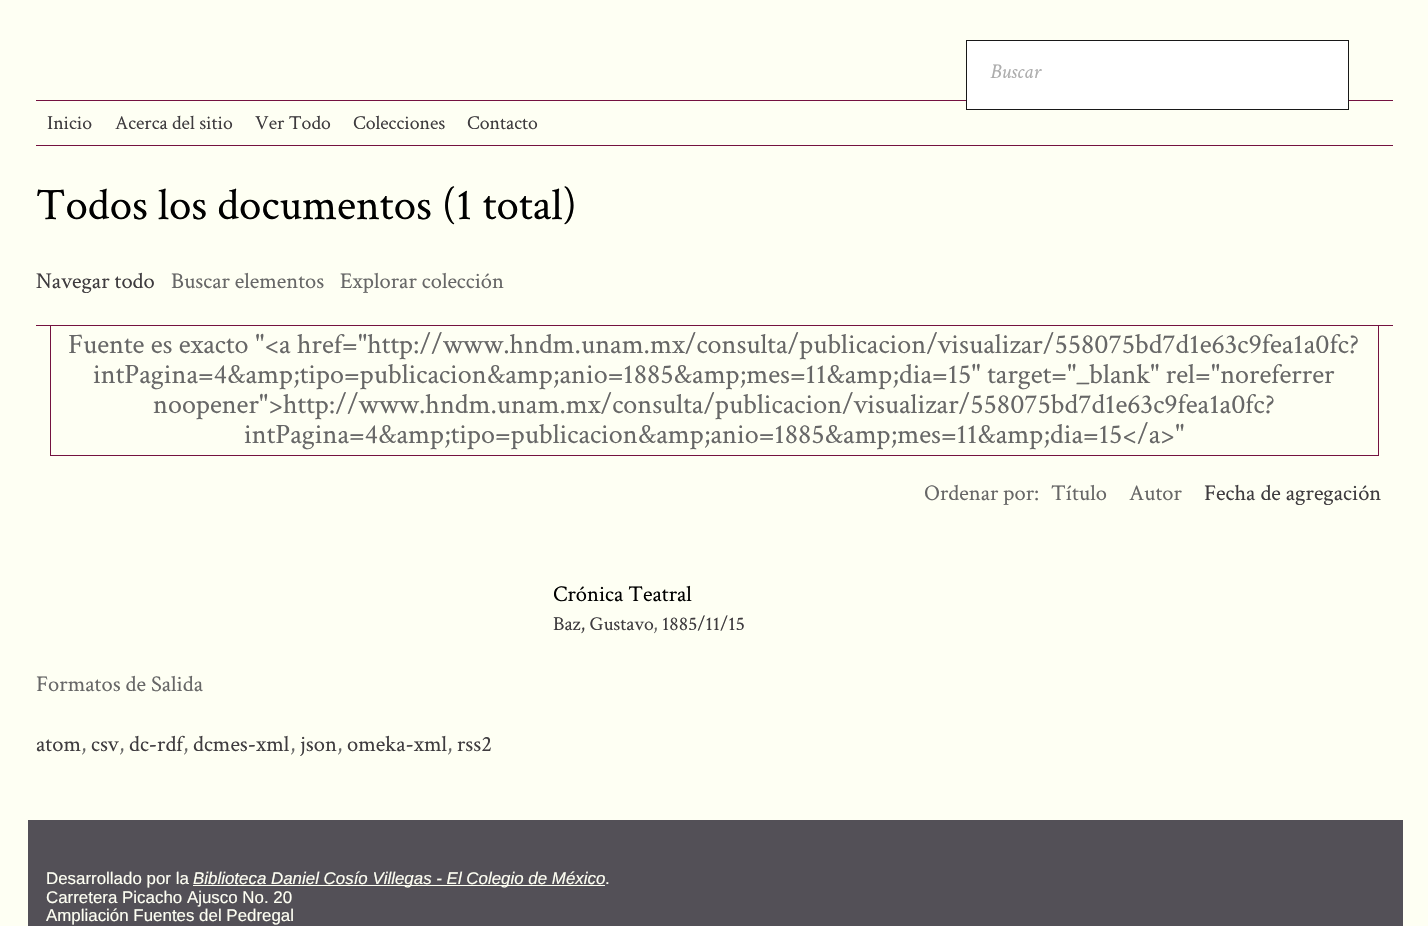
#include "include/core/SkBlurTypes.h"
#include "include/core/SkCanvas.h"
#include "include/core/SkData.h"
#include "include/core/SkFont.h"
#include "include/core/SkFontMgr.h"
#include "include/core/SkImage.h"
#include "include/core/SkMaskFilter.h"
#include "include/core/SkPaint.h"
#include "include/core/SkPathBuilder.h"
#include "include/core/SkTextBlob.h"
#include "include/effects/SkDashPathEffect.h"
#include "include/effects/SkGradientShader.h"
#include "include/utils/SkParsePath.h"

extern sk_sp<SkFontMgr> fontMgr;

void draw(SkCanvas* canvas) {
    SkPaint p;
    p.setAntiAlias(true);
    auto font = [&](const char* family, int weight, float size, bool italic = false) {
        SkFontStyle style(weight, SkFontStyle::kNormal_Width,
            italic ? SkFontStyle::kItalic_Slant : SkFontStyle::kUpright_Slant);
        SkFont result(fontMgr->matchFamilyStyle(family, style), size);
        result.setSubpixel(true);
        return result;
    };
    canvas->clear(0xFFFEFFF3);
    p.setColor(0xFF741240);
    canvas->drawRect(SkRect::MakeLTRB(36, 100, 1393, 101), p);
    p.setColor(0xFFFFFFFF);
    canvas->drawRect(SkRect::MakeLTRB(966.5f, 40.5f, 1348.5f, 109.5f), p);
    p.setStyle(SkPaint::kStroke_Style);
    p.setStrokeWidth(1);
    p.setColor(0xFF181818);
    canvas->drawRect(SkRect::MakeLTRB(966.5f, 40.5f, 1348.5f, 109.5f), p);
    auto font1 = font("Crimson Text", 400, 21, true);
    p.setStyle(SkPaint::kFill_Style);
    p.setColor(0xFFADADAD);
    canvas->drawString("Buscar", 990, 78, font1, p);
    p.setColor(0xFF741240);
    canvas->drawRect(SkRect::MakeLTRB(36, 145, 1393, 146), p);
    auto font2 = font("Crimson Text", 400, 19.75f);
    p.setColor(0xFF3F3C3F);
    {
        const struct { const char* s; float x, y; } items[] = {
            {"Inicio", 47, 129},
            {"Acerca del sitio", 115, 129},
            {"Ver Todo", 255, 129},
            {"Colecciones", 353, 129},
            {"Contacto", 467, 129},
        };
        for (auto [s, x, y] : items) {
            canvas->drawString(s, x, y, font2, p);
        }
    }
    auto font3 = font("Crimson Text", 400, 45);
    p.setColor(0xFF000000);
    canvas->drawString("Todos los documentos (1 total)", 36, 219, font3, p);
    p.setColor(0xFF741240);
    canvas->drawRect(SkRect::MakeLTRB(36, 325, 1393, 326), p);
    auto font4 = font("Crimson Text", 400, 22.5f);
    p.setColor(0xFF3F3C3F);
    canvas->drawString("Navegar todo", 36, 288, font4, p);
    p.setColor(0xFF676767);
    canvas->drawString("Buscar elementos", 171, 288, font4, p);
    canvas->drawString("Explorar colección", 340, 288, font4, p);
    p.setStyle(SkPaint::kStroke_Style);
    p.setColor(0xFF741240);
    canvas->drawRect(SkRect::MakeLTRB(50.5f, 325.5f, 1378.5f, 455.5f), p);
    auto font5 = font("Crimson Text", 400, 28.1f);
    p.setStyle(SkPaint::kFill_Style);
    p.setColor(0xFF676767);
    {
        const struct { const char* s; float x, y; } items[] = {
            {"Fuente es exacto \"<a href=\"http://www.hndm.unam.mx/consulta/publicacion/visualizar/558075bd7d1e63c9fea1a0fc?", 68, 353},
            {"intPagina=4&amp;tipo=publicacion&amp;anio=1885&amp;mes=11&amp;dia=15\" target=\"_blank\" rel=\"noreferrer", 93, 383},
            {"noopener\">http://www.hndm.unam.mx/consulta/publicacion/visualizar/558075bd7d1e63c9fea1a0fc?", 153, 413},
            {"intPagina=4&amp;tipo=publicacion&amp;anio=1885&amp;mes=11&amp;dia=15</a>\"", 244, 443},
        };
        for (auto [s, x, y] : items) {
            canvas->drawString(s, x, y, font5, p);
        }
    }
    {
        const struct { const char* s; float x, y; } items[] = {
            {"Ordenar por:", 924, 500},
            {"Título", 1051, 500},
            {"Autor", 1129, 500},
        };
        for (auto [s, x, y] : items) {
            canvas->drawString(s, x, y, font4, p);
        }
    }
    p.setColor(0xFF3F3C3F);
    canvas->drawString("Fecha de agregación", 1204, 500, font4, p);
    p.setColor(0xFF000000);
    canvas->drawString("Crónica Teatral", 553, 601, font4, p);
    p.setColor(0xFF3F3C3F);
    canvas->drawString("Baz, Gustavo", 553, 630, font2, p);
    p.setColor(0xFF676767);
    canvas->drawString(",", 653, 630, font2, p);
    p.setColor(0xFF3F3C3F);
    canvas->drawString("1885/11/15", 662, 630, font2, p);
    p.setColor(0xFF676767);
    canvas->drawString("Formatos de Salida", 36, 691, font4, p);
    p.setColor(0xFF3F3C3F);
    canvas->drawString("atom", 36, 751, font4, p);
    p.setColor(0xFF676767);
    canvas->drawString(",", 81, 751, font4, p);
    p.setColor(0xFF3F3C3F);
    canvas->drawString("csv", 91, 751, font4, p);
    p.setColor(0xFF676767);
    canvas->drawString(",", 119, 751, font4, p);
    p.setColor(0xFF3F3C3F);
    canvas->drawString("dc-rdf", 129, 751, font4, p);
    p.setColor(0xFF676767);
    canvas->drawString(",", 183, 751, font4, p);
    p.setColor(0xFF3F3C3F);
    canvas->drawString("dcmes-xml", 193, 751, font4, p);
    p.setColor(0xFF676767);
    canvas->drawString(",", 290, 751, font4, p);
    p.setColor(0xFF3F3C3F);
    canvas->drawString("json", 300, 751, font4, p);
    p.setColor(0xFF676767);
    canvas->drawString(",", 337, 751, font4, p);
    p.setColor(0xFF3F3C3F);
    canvas->drawString("omeka-xml", 347, 751, font4, p);
    p.setColor(0xFF676767);
    canvas->drawString(",", 447, 751, font4, p);
    p.setColor(0xFF3F3C3F);
    canvas->drawString("rss2", 457, 751, font4, p);
    p.setColor(0xFF535057);
    canvas->drawRect(SkRect::MakeLTRB(28, 820, 1403, 926), p);
    auto font6 = font("Liberation Sans", 400, 16.9f);
    p.setColor(0xFFFEFFF3);
    canvas->drawString("Desarrollado por la", 46, 884, font6, p);
    canvas->drawRect(SkRect::MakeLTRB(193, 885, 605, 886), p);
    auto font7 = font("Liberation Sans", 400, 16.9f, true);
    canvas->drawString("Biblioteca Daniel Cosío Villegas - El Colegio de México", 193, 884, font7, p);
    {
        const struct { const char* s; float x, y; } items[] = {
            {".", 605, 884},
            {"Carretera Picacho Ajusco No. 20", 46, 903},
            {"Ampliación Fuentes del Pedregal", 46, 921},
        };
        for (auto [s, x, y] : items) {
            canvas->drawString(s, x, y, font6, p);
        }
    }
}
